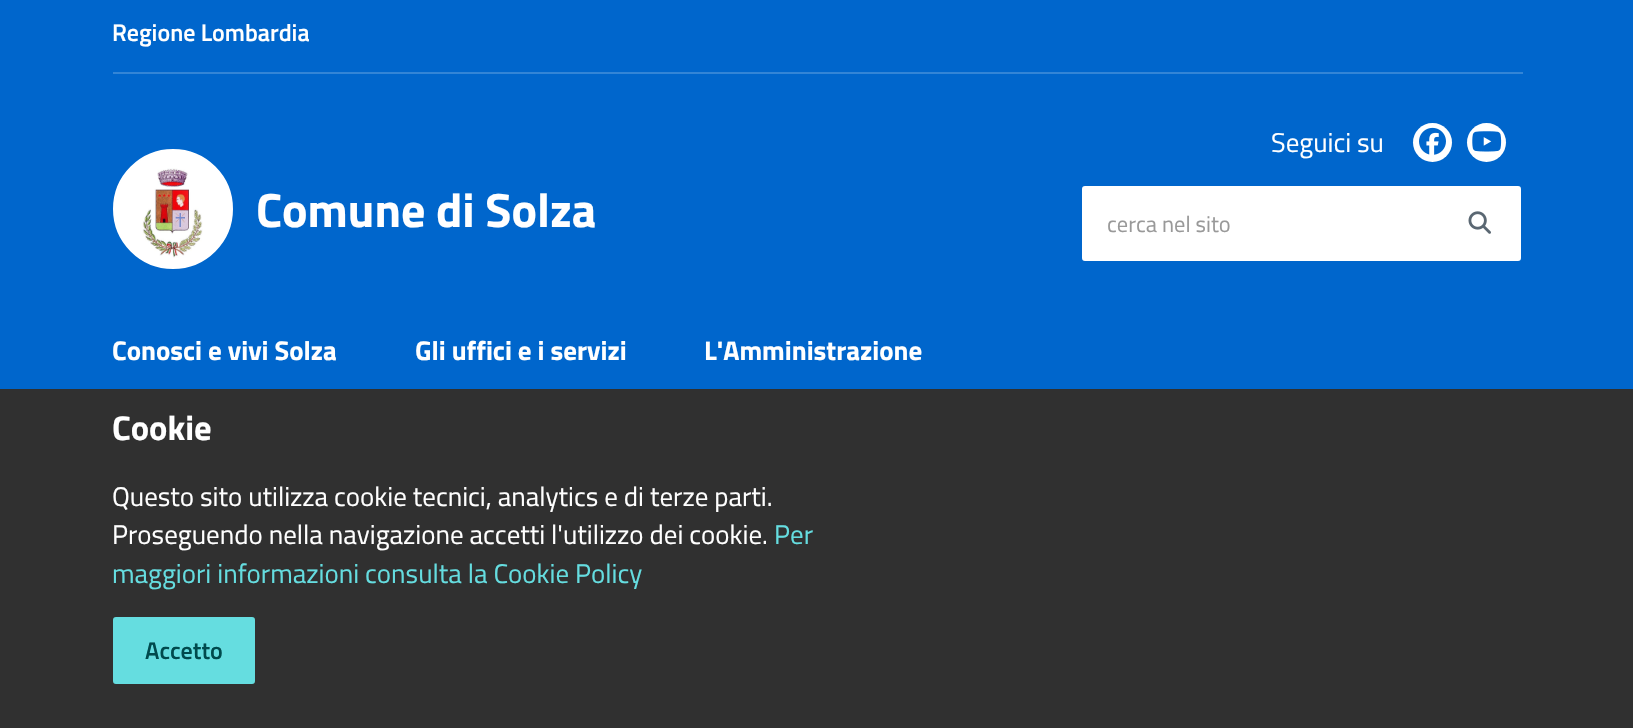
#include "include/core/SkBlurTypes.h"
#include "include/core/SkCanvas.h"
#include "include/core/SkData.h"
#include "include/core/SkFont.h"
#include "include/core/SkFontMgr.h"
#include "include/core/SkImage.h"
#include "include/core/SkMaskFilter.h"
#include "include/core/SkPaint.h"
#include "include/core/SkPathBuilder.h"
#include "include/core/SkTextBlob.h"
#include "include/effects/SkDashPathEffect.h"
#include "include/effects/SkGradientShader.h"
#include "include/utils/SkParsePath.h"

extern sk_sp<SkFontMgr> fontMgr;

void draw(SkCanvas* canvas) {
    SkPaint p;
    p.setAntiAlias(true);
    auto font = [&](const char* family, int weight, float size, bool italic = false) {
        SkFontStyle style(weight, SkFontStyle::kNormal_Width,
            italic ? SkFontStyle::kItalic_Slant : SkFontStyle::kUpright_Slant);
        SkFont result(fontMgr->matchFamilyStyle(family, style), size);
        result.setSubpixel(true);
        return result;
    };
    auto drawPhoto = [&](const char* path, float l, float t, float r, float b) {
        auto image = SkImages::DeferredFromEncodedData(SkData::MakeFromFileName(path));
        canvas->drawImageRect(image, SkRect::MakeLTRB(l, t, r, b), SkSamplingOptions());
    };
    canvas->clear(0xFF303030);
    p.setColor(0xFF0066CC);
    canvas->drawRect(SkRect::MakeLTRB(0, 0, 1633, 389), p);
    auto font1 = font("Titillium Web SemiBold", 600, 24);
    p.setColor(0xFFFFFFFF);
    canvas->drawString("Regione Lombardia", 112, 41, font1, p);
    p.setColor(0xFF3385D6);
    canvas->drawRect(SkRect::MakeLTRB(113, 72, 1523, 74), p);
    p.setColor(0xFFFFFFFF);
    canvas->drawCircle(173, 209, 59, p);
    p.setStyle(SkPaint::kStroke_Style);
    p.setStrokeWidth(2);
    canvas->drawCircle(173, 209, 59, p);
    drawPhoto("media/1.png", 142, 168, 203, 258);
    auto font2 = font("Titillium Web", 700, 48);
    p.setStyle(SkPaint::kFill_Style);
    canvas->drawString("Comune di Solza", 256, 227, font2, p);
    auto font3 = font("Titillium Web", 400, 27);
    canvas->drawString("Seguici su", 1271, 152, font3, p);
    canvas->drawCircle(1432.5f, 142.5f, 19.5f, p);
    drawPhoto("media/2.png", 1419, 127, 1446, 155);
    canvas->drawCircle(1486.5f, 142.5f, 19.5f, p);
    drawPhoto("media/3.png", 1472, 131, 1502, 152);
    canvas->drawRoundRect(SkRect::MakeLTRB(1083, 187, 1520, 260), 2, 2, p);
    p.setStyle(SkPaint::kStroke_Style);
    canvas->drawRoundRect(SkRect::MakeLTRB(1083, 187, 1520, 260), 2, 2, p);
    auto font4 = font("Titillium Web", 400, 22.5f);
    p.setStyle(SkPaint::kFill_Style);
    p.setColor(0xFF999999);
    canvas->drawString("cerca nel sito", 1107, 232, font4, p);
    drawPhoto("media/4.png", 1468, 211, 1491, 234);
    auto font5 = font("Titillium Web", 700, 27);
    p.setColor(0xFFFFFFFF);
    {
        const struct { const char* s; float x, y; } items[] = {
            {"Conosci e vivi Solza", 112, 360},
            {"Gli uffici e i servizi", 415, 360},
            {"L'Amministrazione", 704, 360},
        };
        for (auto [s, x, y] : items) {
            canvas->drawString(s, x, y, font5, p);
        }
    }
    auto font6 = font("Titillium Web", 700, 34.5f);
    canvas->drawString("Cookie", 112, 440, font6, p);
    canvas->drawString("Questo sito utilizza cookie tecnici, analytics e di terze parti.", 112, 506, font3, p);
    canvas->drawString("Proseguendo nella navigazione accetti l'utilizzo dei cookie.", 112, 544, font3, p);
    p.setColor(0xFF65DDE0);
    canvas->drawString("Per", 774, 544, font3, p);
    canvas->drawString("maggiori informazioni consulta la Cookie Policy", 112, 583, font3, p);
    canvas->drawRoundRect(SkRect::MakeLTRB(114, 618, 254, 683), 2, 2, p);
    p.setStyle(SkPaint::kStroke_Style);
    canvas->drawRoundRect(SkRect::MakeLTRB(114, 618, 254, 683), 2, 2, p);
    p.setStyle(SkPaint::kFill_Style);
    p.setColor(0xFF004A4D);
    canvas->drawString("Accetto", 145, 659, font1, p);
}
